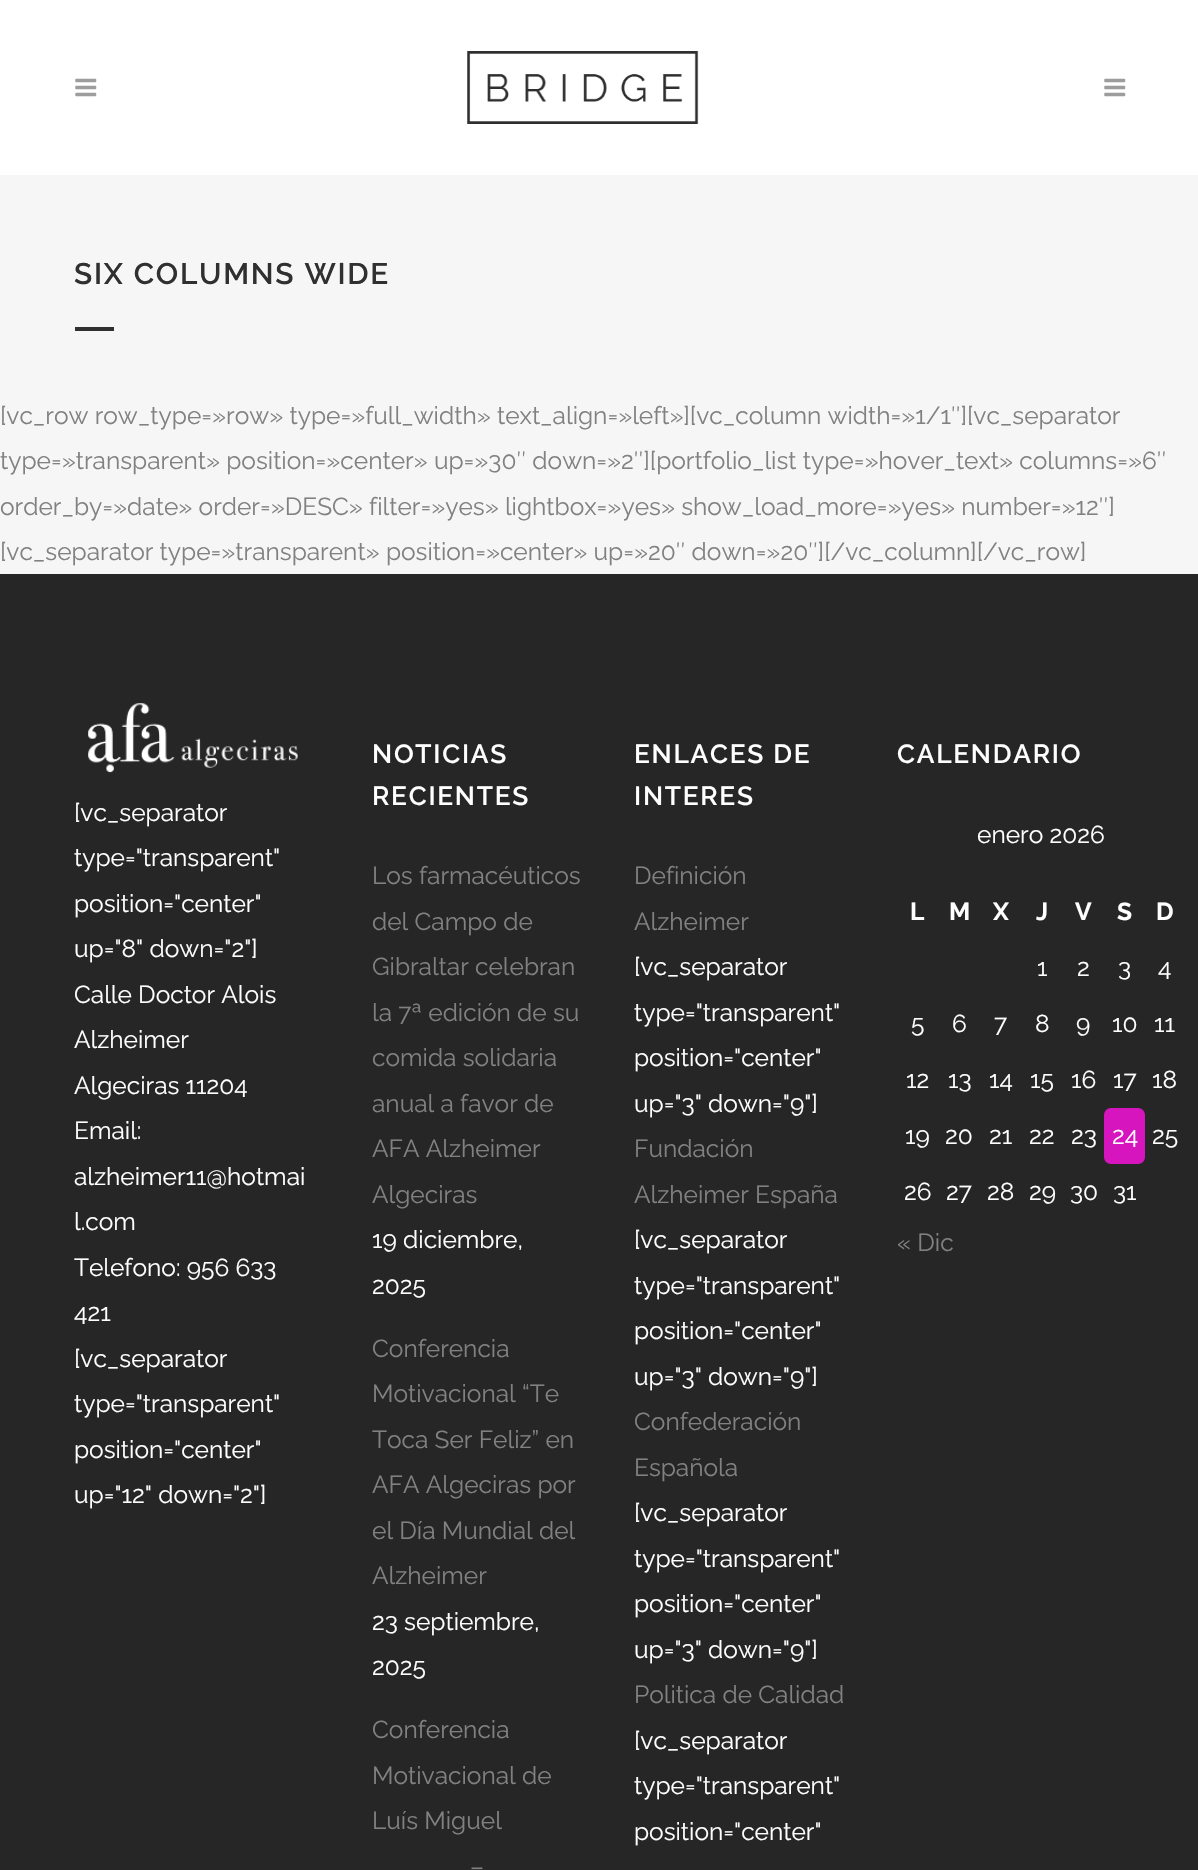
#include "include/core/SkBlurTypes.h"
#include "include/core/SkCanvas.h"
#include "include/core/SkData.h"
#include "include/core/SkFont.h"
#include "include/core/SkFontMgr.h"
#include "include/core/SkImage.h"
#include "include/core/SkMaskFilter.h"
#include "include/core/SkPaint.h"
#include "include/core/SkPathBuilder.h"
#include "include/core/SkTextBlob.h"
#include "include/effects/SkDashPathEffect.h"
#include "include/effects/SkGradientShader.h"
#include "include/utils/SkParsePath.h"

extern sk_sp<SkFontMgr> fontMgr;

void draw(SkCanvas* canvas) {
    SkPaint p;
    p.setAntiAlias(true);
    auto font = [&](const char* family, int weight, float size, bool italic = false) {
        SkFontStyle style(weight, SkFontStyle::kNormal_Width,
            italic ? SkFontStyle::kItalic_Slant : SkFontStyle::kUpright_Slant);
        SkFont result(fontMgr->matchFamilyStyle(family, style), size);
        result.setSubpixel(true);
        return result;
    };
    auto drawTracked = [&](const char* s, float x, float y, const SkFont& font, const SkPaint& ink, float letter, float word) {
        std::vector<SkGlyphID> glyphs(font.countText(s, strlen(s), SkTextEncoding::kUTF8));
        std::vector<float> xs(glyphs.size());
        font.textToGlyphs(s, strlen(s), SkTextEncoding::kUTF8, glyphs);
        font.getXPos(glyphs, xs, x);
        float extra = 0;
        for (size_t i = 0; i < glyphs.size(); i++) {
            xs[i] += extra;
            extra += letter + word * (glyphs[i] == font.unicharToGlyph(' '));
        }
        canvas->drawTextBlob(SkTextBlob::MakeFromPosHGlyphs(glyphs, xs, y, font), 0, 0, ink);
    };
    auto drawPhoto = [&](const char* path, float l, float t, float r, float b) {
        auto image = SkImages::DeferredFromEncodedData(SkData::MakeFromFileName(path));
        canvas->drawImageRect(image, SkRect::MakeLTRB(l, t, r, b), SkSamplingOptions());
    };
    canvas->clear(0xFFF6F6F6);
    p.setColor(0xFFFFFFFF);
    canvas->drawRect(SkRect::MakeLTRB(0, 0, 1198, 175), p);
    drawPhoto("media/1.png", 75, 78, 97, 97);
    drawPhoto("media/2.png", 467, 51, 699, 124);
    drawPhoto("media/1.png", 1104, 78, 1126, 97);
    auto font1 = font("Raleway", 600, 29.75f);
    p.setColor(0xFF303030);
    drawTracked("SIX COLUMNS WIDE", 74, 284, font1, p, 1.75f, 0);
    canvas->drawRect(SkRect::MakeLTRB(75, 327, 114, 331), p);
    auto font2 = font("Raleway", 400, 24.5f);
    p.setColor(0xFF818181);
    {
        const struct { const char* s; float x, y; } items[] = {
            {"[vc_row row_type=»row» type=»full_width» text_align=»left»][vc_column width=»1/1″][vc_separator", 0, 424},
            {"type=»transparent» position=»center» up=»30″ down=»2″][portfolio_list type=»hover_text» columns=»6″", 0, 469},
            {"order_by=»date» order=»DESC» filter=»yes» lightbox=»yes» show_load_more=»yes» number=»12″]", 0, 515},
            {"[vc_separator type=»transparent» position=»center» up=»20″ down=»20″][/vc_column][/vc_row]", 0, 560},
        };
        for (auto [s, x, y] : items) {
            canvas->drawString(s, x, y, font2, p);
        }
    }
    p.setColor(0xFF262626);
    canvas->drawRect(SkRect::MakeLTRB(0, 574, 1198, 1870), p);
    drawPhoto("media/3.png", 88, 703, 298, 773);
    p.setColor(0xFFFFFFFF);
    {
        const struct { const char* s; float x, y; } items[] = {
            {"[vc_separator", 74, 821},
            {"type=\"transparent\"", 74, 866},
            {"position=\"center\"", 74, 912},
            {"up=\"8\" down=\"2\"]", 74, 957},
            {"Calle Doctor Alois", 74, 1003},
            {"Alzheimer", 74, 1048},
            {"Algeciras 11204", 74, 1094},
            {"Email:", 74, 1139},
            {"alzheimer11@hotmai", 74, 1185},
            {"l.com", 74, 1230},
            {"Telefono: 956 633", 74, 1276},
            {"421", 74, 1321},
            {"[vc_separator", 74, 1367},
            {"type=\"transparent\"", 74, 1412},
            {"position=\"center\"", 74, 1458},
            {"up=\"12\" down=\"2\"]", 74, 1503},
        };
        for (auto [s, x, y] : items) {
            canvas->drawString(s, x, y, font2, p);
        }
    }
    auto font3 = font("Raleway", 600, 26.25f);
    drawTracked("NOTICIAS", 372, 763, font3, p, 1.75f, 0);
    drawTracked("RECIENTES", 372, 805, font3, p, 1.75f, 0);
    p.setColor(0xFF818181);
    {
        const struct { const char* s; float x, y; } items[] = {
            {"Los farmacéuticos", 372, 884},
            {"del Campo de", 372, 930},
            {"Gibraltar celebran", 372, 975},
            {"la 7ª edición de su", 372, 1021},
            {"comida solidaria", 372, 1066},
            {"anual a favor de", 372, 1112},
            {"AFA Alzheimer", 372, 1157},
            {"Algeciras", 372, 1203},
        };
        for (auto [s, x, y] : items) {
            canvas->drawString(s, x, y, font2, p);
        }
    }
    p.setColor(0xFFFFFFFF);
    canvas->drawString("19 diciembre,", 372, 1248, font2, p);
    canvas->drawString("2025", 372, 1294, font2, p);
    p.setColor(0xFF818181);
    {
        const struct { const char* s; float x, y; } items[] = {
            {"Conferencia", 372, 1357},
            {"Motivacional “Te", 372, 1402},
            {"Toca Ser Feliz” en", 372, 1448},
            {"AFA Algeciras por", 372, 1493},
            {"el Día Mundial del", 372, 1539},
            {"Alzheimer", 372, 1584},
        };
        for (auto [s, x, y] : items) {
            canvas->drawString(s, x, y, font2, p);
        }
    }
    p.setColor(0xFFFFFFFF);
    canvas->drawString("23 septiembre,", 372, 1630, font2, p);
    canvas->drawString("2025", 372, 1675, font2, p);
    p.setColor(0xFF818181);
    {
        const struct { const char* s; float x, y; } items[] = {
            {"Conferencia", 372, 1738},
            {"Motivacional de", 372, 1784},
            {"Luís Miguel", 372, 1829},
            {"–", 470, 1875},
        };
        for (auto [s, x, y] : items) {
            canvas->drawString(s, x, y, font2, p);
        }
    }
    p.setColor(0xFFFFFFFF);
    drawTracked("ENLACES DE", 634, 763, font3, p, 1.75f, 0);
    drawTracked("INTERES", 634, 805, font3, p, 1.75f, 0);
    p.setColor(0xFF818181);
    canvas->drawString("Definición", 634, 884, font2, p);
    canvas->drawString("Alzheimer", 634, 930, font2, p);
    p.setColor(0xFFFFFFFF);
    {
        const struct { const char* s; float x, y; } items[] = {
            {"[vc_separator", 634, 975},
            {"type=\"transparent\"", 634, 1021},
            {"position=\"center\"", 634, 1066},
            {"up=\"3\" down=\"9\"]", 634, 1112},
        };
        for (auto [s, x, y] : items) {
            canvas->drawString(s, x, y, font2, p);
        }
    }
    p.setColor(0xFF818181);
    canvas->drawString("Fundación", 634, 1157, font2, p);
    canvas->drawString("Alzheimer España", 634, 1203, font2, p);
    p.setColor(0xFFFFFFFF);
    {
        const struct { const char* s; float x, y; } items[] = {
            {"[vc_separator", 634, 1248},
            {"type=\"transparent\"", 634, 1294},
            {"position=\"center\"", 634, 1339},
            {"up=\"3\" down=\"9\"]", 634, 1385},
        };
        for (auto [s, x, y] : items) {
            canvas->drawString(s, x, y, font2, p);
        }
    }
    p.setColor(0xFF818181);
    canvas->drawString("Confederación", 634, 1430, font2, p);
    canvas->drawString("Española", 634, 1476, font2, p);
    p.setColor(0xFFFFFFFF);
    {
        const struct { const char* s; float x, y; } items[] = {
            {"[vc_separator", 634, 1521},
            {"type=\"transparent\"", 634, 1567},
            {"position=\"center\"", 634, 1612},
            {"up=\"3\" down=\"9\"]", 634, 1658},
        };
        for (auto [s, x, y] : items) {
            canvas->drawString(s, x, y, font2, p);
        }
    }
    p.setColor(0xFF818181);
    canvas->drawString("Politica de Calidad", 634, 1703, font2, p);
    p.setColor(0xFFFFFFFF);
    {
        const struct { const char* s; float x, y; } items[] = {
            {"[vc_separator", 634, 1749},
            {"type=\"transparent\"", 634, 1794},
            {"position=\"center\"", 634, 1840},
        };
        for (auto [s, x, y] : items) {
            canvas->drawString(s, x, y, font2, p);
        }
    }
    drawTracked("CALENDARIO", 897, 763, font3, p, 1.75f, 0);
    canvas->drawString("enero 2026", 977, 843, font2, p);
    auto font4 = font("Raleway", 700, 24.5f);
    {
        const struct { const char* s; float x, y; } items[] = {
            {"L", 910, 920},
            {"M", 949, 920},
            {"X", 993, 920},
            {"J", 1036, 920},
            {"V", 1075, 920},
            {"S", 1117, 920},
            {"D", 1156, 920},
        };
        for (auto [s, x, y] : items) {
            canvas->drawString(s, x, y, font4, p);
        }
    }
    {
        const struct { const char* s; float x, y; } items[] = {
            {"1", 1037, 976},
            {"2", 1077, 976},
            {"3", 1118, 976},
            {"4", 1158, 976},
            {"5", 911, 1032},
            {"6", 952, 1032},
            {"7", 994, 1032},
            {"8", 1035, 1032},
            {"9", 1076, 1032},
            {"10", 1112, 1032},
            {"11", 1154, 1032},
            {"12", 906, 1088},
            {"13", 948, 1088},
            {"14", 989, 1088},
            {"15", 1030, 1088},
            {"16", 1071, 1088},
            {"17", 1113, 1088},
            {"18", 1152, 1088},
            {"19", 905, 1144},
            {"20", 945, 1144},
            {"21", 989, 1144},
            {"22", 1029, 1144},
            {"23", 1071, 1144},
        };
        for (auto [s, x, y] : items) {
            canvas->drawString(s, x, y, font2, p);
        }
    }
    p.setColor(0xFFD615BF);
    canvas->drawRoundRect(SkRect::MakeLTRB(1104, 1108, 1145, 1164), 7, 7, p);
    p.setColor(0xFFFFFFFF);
    {
        const struct { const char* s; float x, y; } items[] = {
            {"24", 1112, 1144},
            {"25", 1152, 1144},
            {"26", 904, 1200},
            {"27", 946, 1200},
            {"28", 987, 1200},
            {"29", 1029, 1200},
            {"30", 1070, 1200},
            {"31", 1113, 1200},
        };
        for (auto [s, x, y] : items) {
            canvas->drawString(s, x, y, font2, p);
        }
    }
    p.setColor(0xFF818181);
    canvas->drawString("« Dic", 897, 1251, font2, p);
}
